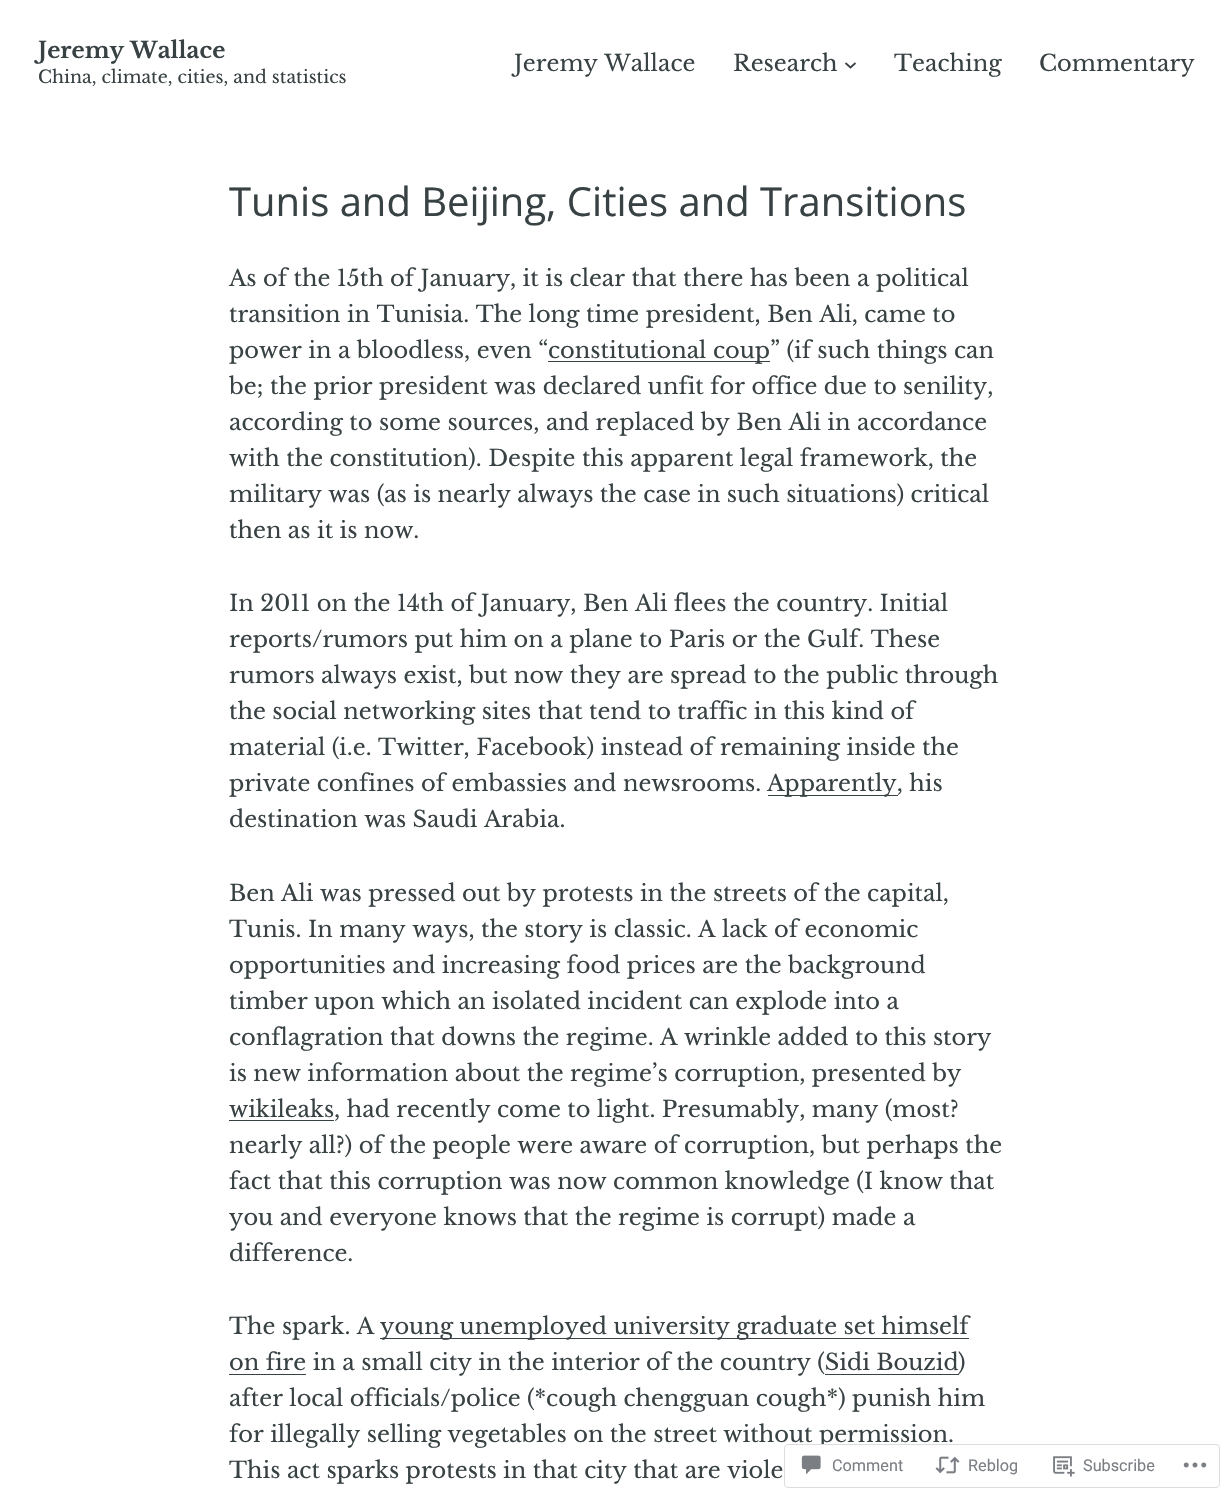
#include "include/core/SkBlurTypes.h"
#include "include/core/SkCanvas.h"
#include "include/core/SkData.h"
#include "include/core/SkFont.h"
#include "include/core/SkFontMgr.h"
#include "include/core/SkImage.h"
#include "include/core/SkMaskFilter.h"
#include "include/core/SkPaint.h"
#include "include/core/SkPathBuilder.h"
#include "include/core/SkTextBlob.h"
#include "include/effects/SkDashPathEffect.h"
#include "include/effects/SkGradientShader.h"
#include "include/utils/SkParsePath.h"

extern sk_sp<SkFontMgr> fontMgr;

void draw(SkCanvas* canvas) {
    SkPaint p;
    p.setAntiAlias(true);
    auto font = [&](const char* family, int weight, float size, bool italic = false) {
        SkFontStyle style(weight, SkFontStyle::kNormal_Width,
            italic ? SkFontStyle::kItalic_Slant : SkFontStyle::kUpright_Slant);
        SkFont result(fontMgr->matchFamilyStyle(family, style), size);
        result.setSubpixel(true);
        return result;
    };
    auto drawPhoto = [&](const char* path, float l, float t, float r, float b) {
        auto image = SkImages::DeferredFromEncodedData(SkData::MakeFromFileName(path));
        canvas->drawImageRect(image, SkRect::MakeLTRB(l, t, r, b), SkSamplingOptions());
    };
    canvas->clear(0xFFFFFFFF);
    auto font1 = font("Libre Baskerville", 700, 22.5f);
    p.setColor(0xFF384143);
    canvas->drawString("Jeremy Wallace", 38, 58, font1, p);
    auto font2 = font("Libre Baskerville", 400, 17.5f);
    canvas->drawString("China, climate, cities, and statistics", 38, 83, font2, p);
    auto font3 = font("Libre Baskerville", 400, 22.5f);
    canvas->drawString("Jeremy Wallace", 514, 71, font3, p);
    canvas->drawString("Research", 733, 71, font3, p);
    p.setStyle(SkPaint::kStroke_Style);
    p.setStrokeWidth(1.7f);
    canvas->drawPath(SkPathBuilder().moveTo(845.5f, 63).lineTo(850.5f, 67.5f).lineTo(855.5f, 63).detach(), p);
    p.setStyle(SkPaint::kFill_Style);
    canvas->drawString("Teaching", 894, 71, font3, p);
    canvas->drawString("Commentary", 1039, 71, font3, p);
    auto font4 = font("Open Sans", 400, 40);
    canvas->drawString("Tunis and Beijing, Cities and Transitions", 229, 216, font4, p);
    {
        const struct { const char* s; float x, y; } items[] = {
            {"As of the 15th of January, it is clear that there has been a political", 229, 286},
            {"transition in Tunisia. The long time president, Ben Ali, came to", 229, 322},
            {"power in a bloodless, even “", 229, 358},
        };
        for (auto [s, x, y] : items) {
            canvas->drawString(s, x, y, font3, p);
        }
    }
    canvas->drawRect(SkRect::MakeLTRB(548, 361, 770, 362), p);
    {
        const struct { const char* s; float x, y; } items[] = {
            {"constitutional coup” (if such things can", 548, 358},
            {"be; the prior president was declared unfit for office due to senility,", 229, 394},
            {"according to some sources, and replaced by Ben Ali in accordance", 229, 430},
            {"with the constitution). Despite this apparent legal framework, the", 229, 466},
            {"military was (as is nearly always the case in such situations) critical", 229, 502},
            {"then as it is now.", 229, 538},
            {"In 2011 on the 14th of January, Ben Ali flees the country. Initial", 229, 611},
            {"reports/rumors put him on a plane to Paris or the Gulf. These", 229, 647},
            {"rumors always exist, but now they are spread to the public through", 229, 683},
            {"the social networking sites that tend to traffic in this kind of", 229, 719},
            {"material (i.e. Twitter, Facebook) instead of remaining inside the", 229, 755},
            {"private confines of embassies and newsrooms.", 229, 791},
        };
        for (auto [s, x, y] : items) {
            canvas->drawString(s, x, y, font3, p);
        }
    }
    canvas->drawRect(SkRect::MakeLTRB(768, 795, 898, 796), p);
    {
        const struct { const char* s; float x, y; } items[] = {
            {"Apparently, his", 767, 791},
            {"destination was Saudi Arabia.", 229, 827},
            {"Ben Ali was pressed out by protests in the streets of the capital,", 229, 901},
            {"Tunis. In many ways, the story is classic. A lack of economic", 229, 937},
            {"opportunities and increasing food prices are the background", 229, 973},
            {"timber upon which an isolated incident can explode into a", 229, 1009},
            {"conflagration that downs the regime. A wrinkle added to this story", 229, 1045},
            {"is new information about the regime’s corruption, presented by", 229, 1081},
        };
        for (auto [s, x, y] : items) {
            canvas->drawString(s, x, y, font3, p);
        }
    }
    canvas->drawRect(SkRect::MakeLTRB(229, 1120, 334, 1121), p);
    {
        const struct { const char* s; float x, y; } items[] = {
            {"wikileaks, had recently come to light. Presumably, many (most?", 229, 1117},
            {"nearly all?) of the people were aware of corruption, but perhaps the", 229, 1153},
            {"fact that this corruption was now common knowledge (I know that", 229, 1189},
            {"you and everyone knows that the regime is corrupt) made a", 229, 1225},
            {"difference.", 229, 1261},
            {"The spark. A", 229, 1334},
        };
        for (auto [s, x, y] : items) {
            canvas->drawString(s, x, y, font3, p);
        }
    }
    canvas->drawRect(SkRect::MakeLTRB(380, 1338, 969, 1339), p);
    canvas->drawString("young unemployed university graduate set himself", 380, 1334, font3, p);
    canvas->drawRect(SkRect::MakeLTRB(229, 1374, 306, 1375), p);
    canvas->drawString("on fire in a small city in the interior of the country (Sidi Bouzid", 229, 1370, font3, p);
    canvas->drawRect(SkRect::MakeLTRB(825, 1374, 959, 1375), p);
    {
        const struct { const char* s; float x, y; } items[] = {
            {")", 958, 1370},
            {"after local officials/police (*cough chengguan cough*) punish him", 229, 1406},
            {"for illegally selling vegetables on the street without permission.", 229, 1442},
            {"This act sparks protests in that city that are viole", 229, 1478},
        };
        for (auto [s, x, y] : items) {
            canvas->drawString(s, x, y, font3, p);
        }
    }
    p.setColor(0xFAFFFFFF);
    canvas->drawRoundRect(SkRect::MakeLTRB(784, 1444, 1220, 1488), 4, 4, p);
    p.setStyle(SkPaint::kStroke_Style);
    p.setStrokeWidth(1);
    p.setColor(0xFADCDCDE);
    canvas->drawRoundRect(SkRect::MakeLTRB(784.5f, 1444.5f, 1219.5f, 1487.5f), 3.5f, 3.5f, p);
    drawPhoto("media/1.png", 801, 1455, 821, 1475);
    auto font5 = font("Roboto", 400, 16.25f);
    p.setStyle(SkPaint::kFill_Style);
    p.setColor(0xFF7B7F84);
    canvas->drawString("Comment", 832, 1471, font5, p);
    drawPhoto("media/2.png", 935, 1456, 960, 1474);
    canvas->drawString("Reblog", 968, 1471, font5, p);
    drawPhoto("media/3.png", 1053, 1456, 1075, 1477);
    canvas->drawString("Subscribe", 1083, 1471, font5, p);
    drawPhoto("media/4.png", 1183, 1462, 1207, 1468);
}
